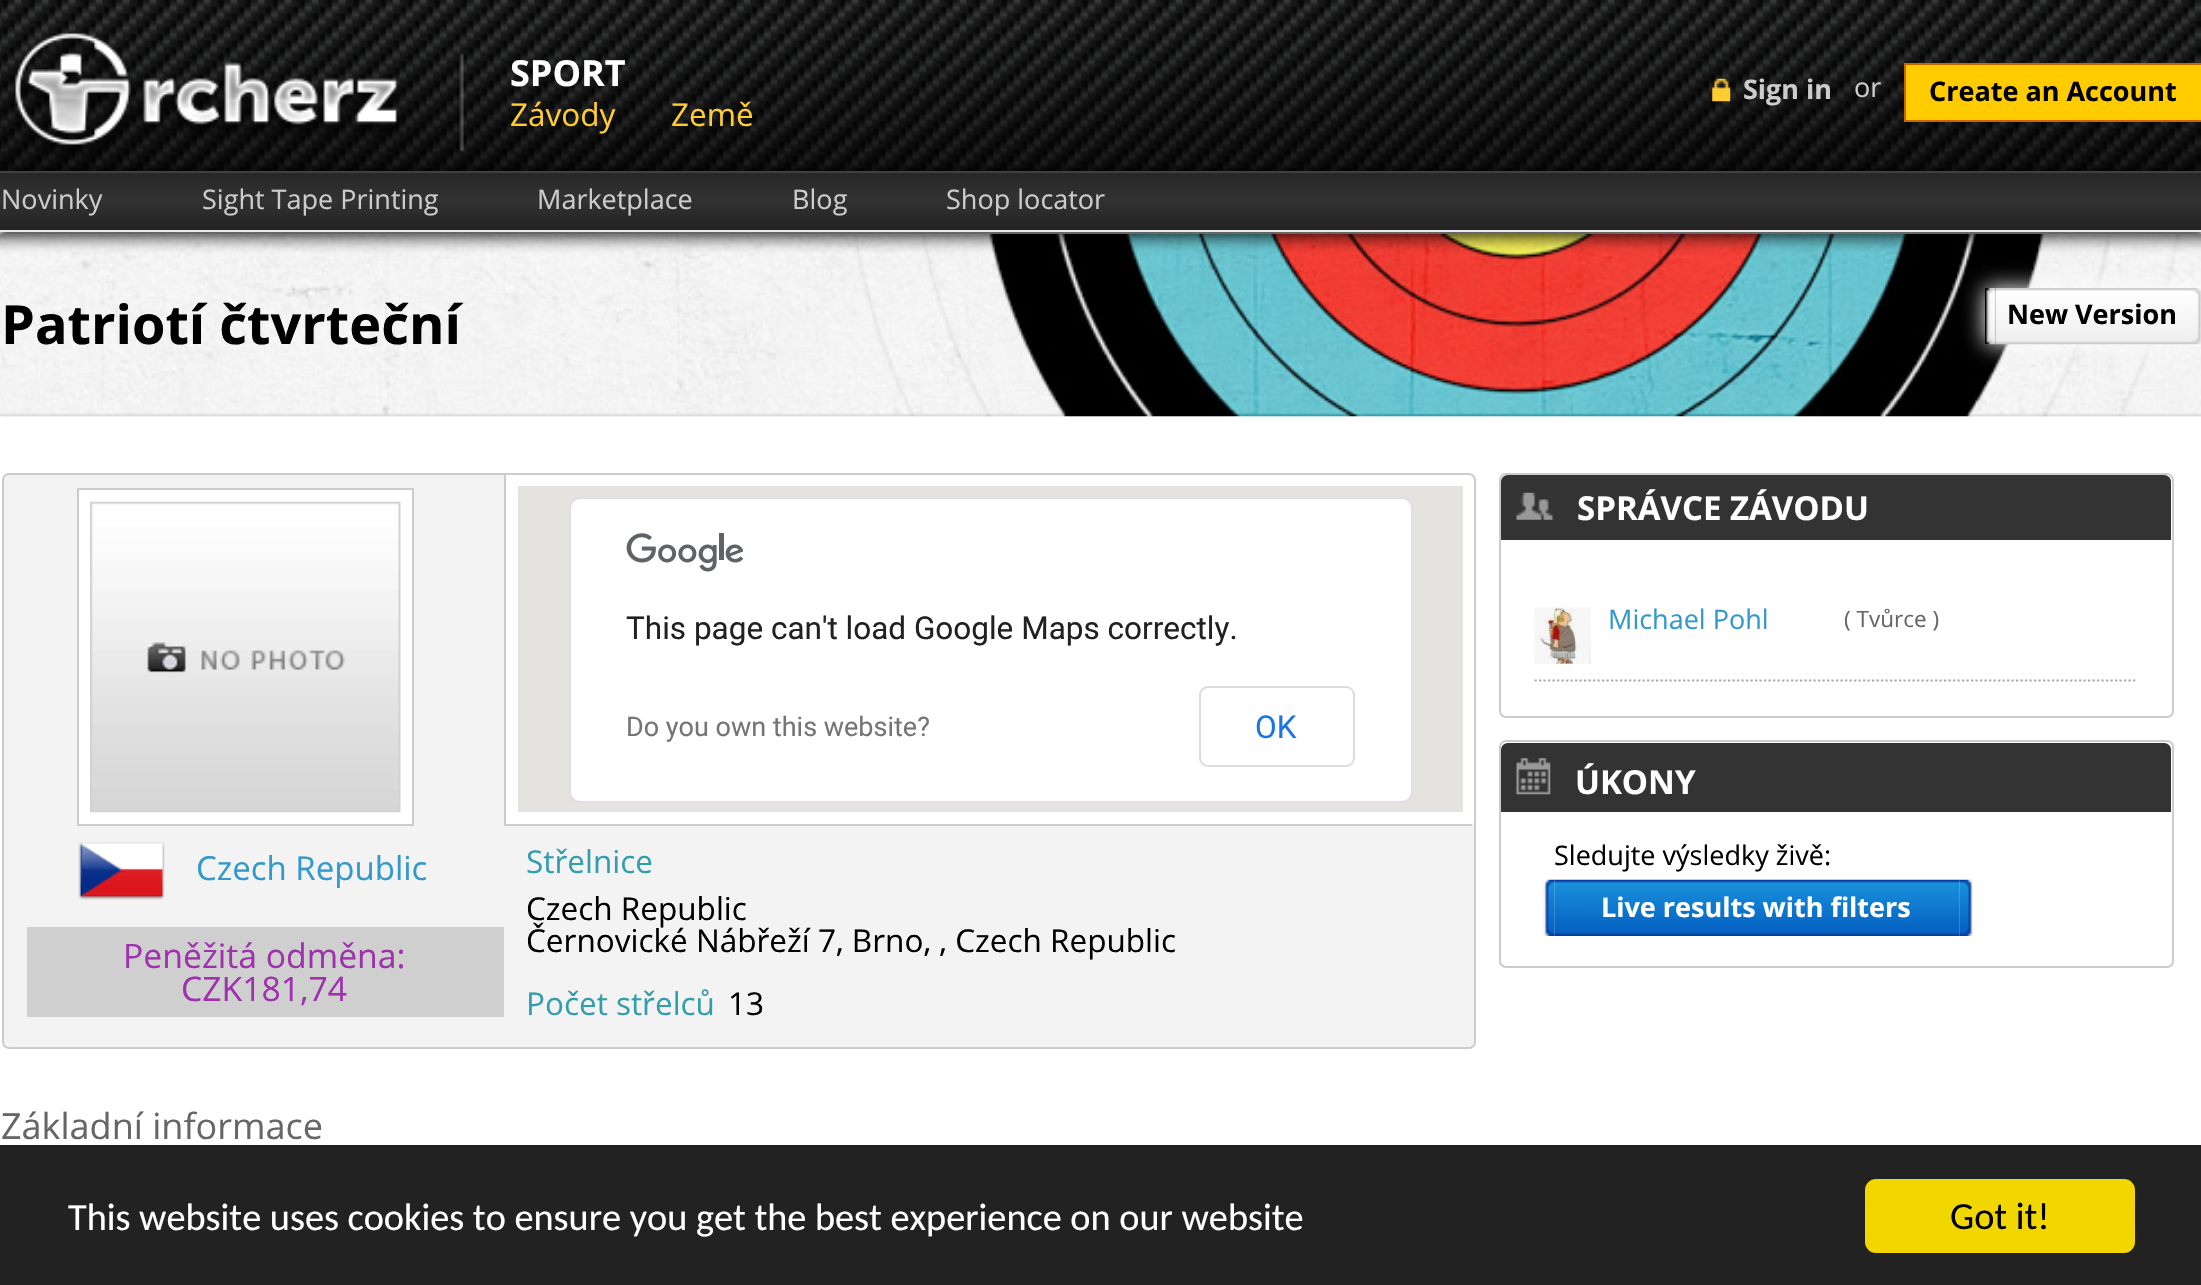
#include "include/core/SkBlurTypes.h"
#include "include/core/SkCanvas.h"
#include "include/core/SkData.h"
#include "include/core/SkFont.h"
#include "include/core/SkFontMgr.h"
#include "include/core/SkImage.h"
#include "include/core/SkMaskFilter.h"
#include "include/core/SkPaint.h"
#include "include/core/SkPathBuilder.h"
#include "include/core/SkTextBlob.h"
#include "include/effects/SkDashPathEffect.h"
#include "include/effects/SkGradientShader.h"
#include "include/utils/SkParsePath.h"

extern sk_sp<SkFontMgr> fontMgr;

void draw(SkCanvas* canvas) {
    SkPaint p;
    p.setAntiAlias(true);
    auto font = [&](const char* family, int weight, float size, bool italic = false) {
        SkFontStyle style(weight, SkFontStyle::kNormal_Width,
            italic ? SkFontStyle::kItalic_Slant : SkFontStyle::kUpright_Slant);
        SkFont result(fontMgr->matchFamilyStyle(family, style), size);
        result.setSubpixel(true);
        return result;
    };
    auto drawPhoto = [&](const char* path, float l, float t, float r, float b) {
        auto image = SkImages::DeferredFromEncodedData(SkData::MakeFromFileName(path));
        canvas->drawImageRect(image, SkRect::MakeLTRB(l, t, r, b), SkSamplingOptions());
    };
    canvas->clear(0xFFFFFFFF);
    drawPhoto("media/1.png", 0, 0, 2201, 171);
    drawPhoto("media/2.png", 9, 33, 403, 159);
    drawPhoto("media/3.png", 457, 53, 464, 152);
    auto font1 = font("Open Sans", 700, 36);
    p.setColor(0xFFFFFFFF);
    canvas->drawString("SPORT", 510, 86, font1, p);
    auto font2 = font("Open Sans", 400, 31.5f);
    p.setColor(0xFFFFCC33);
    canvas->drawString("Závody", 510, 126, font2, p);
    canvas->drawString("Země", 671, 126, font2, p);
    drawPhoto("media/4.png", 1712, 78, 1731, 102);
    auto font3 = font("Open Sans", 700, 27);
    p.setColor(0xFFCCCCCC);
    canvas->drawString("Sign in", 1743, 99, font3, p);
    auto font4 = font("Open Sans", 400, 27);
    canvas->drawString("or", 1854, 97, font4, p);
    p.setColor(0xFFFFCC00);
    canvas->drawRect(SkRect::MakeLTRB(1905, 64, 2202, 121), p);
    p.setStyle(SkPaint::kStroke_Style);
    p.setStrokeWidth(2);
    p.setColor(0xFFCC6600);
    canvas->drawRect(SkRect::MakeLTRB(1905, 64, 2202, 121), p);
    p.setStyle(SkPaint::kFill_Style);
    p.setColor(0xFF000000);
    canvas->drawString("Create an Account", 1929, 101, font3, p);
    p.setColor(0xFF666666);
    p.setMaskFilter(SkMaskFilter::MakeBlur(kNormal_SkBlurStyle, 3.5f));
    canvas->drawRect(SkRect::MakeLTRB(0, 182, 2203, 243), p);
    p.setMaskFilter(nullptr);
    {
        const SkColor colors[] = {0xFF272727, 0xFF323232, 0xFF222222};
        const float stops[] = {0, 0.46f, 1};
        const SkPoint ends[] = {{1101, 173}, {1101, 230}};
        p.setShader(SkGradientShader::MakeLinear(ends, colors, stops, 3, SkTileMode::kClamp));
        p.setAlpha(255);
    }
    canvas->drawRect(SkRect::MakeLTRB(0, 173, 2201, 230), p);
    p.setShader(nullptr);
    p.setColor(0xFF404040);
    canvas->drawRect(SkRect::MakeLTRB(0, 171, 2201, 173), p);
    p.setColor(0xFFEAEAEA);
    canvas->drawRect(SkRect::MakeLTRB(0, 230, 2201, 232), p);
    p.setColor(0xFFCCCCCC);
    {
        const struct { const char* s; float x, y; } items[] = {
            {"Novinky", 1, 209},
            {"Sight Tape Printing", 202, 209},
            {"Marketplace", 537, 209},
            {"Blog", 792, 209},
            {"Shop locator", 946, 209},
        };
        for (auto [s, x, y] : items) {
            canvas->drawString(s, x, y, font4, p);
        }
    }
    drawPhoto("media/5.png", 0, 234, 2201, 417);
    drawPhoto("media/6.png", 2, 234, 2201, 417);
    auto font5 = font("Open Sans", 700, 54);
    p.setColor(0xFF000000);
    canvas->drawString("Patriotí čtvrteční", 1, 344, font5, p);
    canvas->save();
    canvas->clipPath(SkPathBuilder(SkPathFillType::kEvenOdd).moveTo(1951, 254).lineTo(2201, 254).lineTo(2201, 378).lineTo(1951, 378).close().moveTo(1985, 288).lineTo(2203, 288).lineTo(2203, 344).lineTo(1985, 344).close().detach(), true);
    p.setColor(0xFFFFFFFF);
    p.setMaskFilter(SkMaskFilter::MakeBlur(kNormal_SkBlurStyle, 11));
    canvas->drawRect(SkRect::MakeLTRB(1985, 288, 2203, 344), p);
    p.setMaskFilter(nullptr);
    canvas->restore();
    drawPhoto("media/7.png", 1986, 288, 1996, 345);
    drawPhoto("media/8.png", 1995, 288, 2190, 345);
    p.setColor(0xFF000000);
    canvas->drawString("New Version", 2007, 324, font3, p);
    drawPhoto("media/9.png", 2189, 288, 2201, 345);
    p.setColor(0xFFF3F3F3);
    canvas->drawRoundRect(SkRect::MakeLTRB(3, 474, 1475, 1048), 6, 6, p);
    p.setStyle(SkPaint::kStroke_Style);
    p.setColor(0xFFCCCCCC);
    canvas->drawRoundRect(SkRect::MakeLTRB(3, 474, 1475, 1048), 6, 6, p);
    p.setStyle(SkPaint::kFill_Style);
    p.setColor(0xFFFFFFFF);
    canvas->drawRect(SkRect::MakeLTRB(78, 489, 413, 825), p);
    p.setStyle(SkPaint::kStroke_Style);
    p.setColor(0xFFCCCCCC);
    canvas->drawRect(SkRect::MakeLTRB(78, 489, 413, 825), p);
    drawPhoto("media/10.png", 90, 501, 401, 813);
    p.setStyle(SkPaint::kFill_Style);
    p.setColor(0xFFFFFFFF);
    canvas->drawPath(SkPathBuilder().moveTo(504, 475).lineTo(1467, 475).cubicTo(1471, 475, 1474, 478, 1474, 482).lineTo(1474, 819).cubicTo(1474, 823, 1471, 826, 1467, 826).lineTo(504, 826).close().detach(), p);
    {
        const struct { float l, t, r, b; SkColor color; } items[] = {
            {504, 824, 1472, 826, 0xFFCCCCCC},
            {504, 475, 506, 826, 0xFFCCCCCC},
            {518, 486, 1463, 812, 0xFFE5E3DF},
        };
        for (auto [l, t, r, b, color] : items) {
            p.setColor(color);
            canvas->drawRect(SkRect::MakeLTRB(l, t, r, b), p);
        }
    }
    p.setColor(0xFFFFFFFF);
    canvas->drawRoundRect(SkRect::MakeLTRB(569, 497, 1413, 803), 11, 11, p);
    p.setStyle(SkPaint::kStroke_Style);
    p.setColor(0x1F000000);
    canvas->drawRoundRect(SkRect::MakeLTRB(570, 498, 1412, 802), 10, 10, p);
    drawPhoto("media/11.png", 626, 533, 743, 572);
    auto font6 = font("Roboto", 400, 31.5f);
    p.setStyle(SkPaint::kFill_Style);
    p.setColor(0xFF212121);
    canvas->drawString("This page can't load Google Maps correctly.", 626, 639, font6, p);
    auto font7 = font("Roboto", 400, 27);
    p.setColor(0xFF757575);
    canvas->drawString("Do you own this website?", 626, 736, font7, p);
    p.setStyle(SkPaint::kStroke_Style);
    p.setColor(0xFFDADCE0);
    canvas->drawRoundRect(SkRect::MakeLTRB(1200, 687, 1354, 766), 8, 8, p);
    p.setStyle(SkPaint::kFill_Style);
    p.setColor(0xFF1A73E8);
    canvas->drawString("OK", 1255, 738, font6, p);
    drawPhoto("media/12.png", 78, 842, 165, 900);
    auto font8 = font("Open Sans", 400, 33);
    p.setColor(0xFF3399CC);
    canvas->drawString("Czech Republic", 196, 880, font8, p);
    p.setColor(0xFFCFCFCF);
    canvas->drawRect(SkRect::MakeLTRB(27, 927, 504, 1017), p);
    auto font9 = font("Open Sans", 400, 33.75f);
    p.setColor(0xFF9D32AC);
    canvas->drawString("Peněžitá odměna:", 123, 968, font9, p);
    canvas->drawString("CZK181,74", 181, 1001, font9, p);
    p.setColor(0xFF329DAC);
    canvas->drawString("Střelnice", 526, 873, font2, p);
    p.setColor(0xFF000000);
    canvas->drawString("Czech Republic", 526, 920, font2, p);
    canvas->drawString("Černovické Nábřeží 7, Brno, , Czech Republic", 526, 952, font2, p);
    p.setColor(0xFF329DAC);
    canvas->drawString("Počet střelců", 526, 1015, font2, p);
    p.setColor(0xFF000000);
    canvas->drawString("13", 728, 1015, font2, p);
    auto font10 = font("Open Sans", 400, 36);
    p.setColor(0xFF666666);
    canvas->drawString("Základní informace", 1, 1139, font10, p);
    p.setStyle(SkPaint::kStroke_Style);
    p.setColor(0xFFCCCCCC);
    canvas->drawRoundRect(SkRect::MakeLTRB(1500, 474, 2173, 717), 6, 6, p);
    p.setStyle(SkPaint::kFill_Style);
    p.setColor(0xFF333333);
    canvas->drawPath(SkPathBuilder().moveTo(1508, 475).lineTo(2164, 475).cubicTo(2168, 475, 2171, 478, 2171, 482).lineTo(2171, 540).lineTo(1501, 540).lineTo(1501, 482).cubicTo(1501, 478, 1504, 475, 1508, 475).close().detach(), p);
    drawPhoto("media/13.png", 1516, 492, 1553, 520);
    auto font11 = font("Open Sans", 700, 33);
    p.setColor(0xFFFFFFFF);
    canvas->drawString("SPRÁVCE ZÁVODU", 1577, 520, font11, p);
    p.setStyle(SkPaint::kStroke_Style);
    p.setStrokeWidth(2.2f);
    p.setColor(0xFFAAAAAA);
    p.setPathEffect(SkDashPathEffect::Make({{2.25f, 2.25f}}, 0));
    canvas->drawPath(SkPathBuilder().moveTo(1534.5f, 680.5f).lineTo(2137.5f, 680.5f).detach(), p);
    p.setPathEffect(nullptr);
    drawPhoto("media/14.png", 1534, 607, 1591, 664);
    p.setStyle(SkPaint::kFill_Style);
    p.setColor(0xFF3399CC);
    canvas->drawString("Michael Pohl", 1608, 629, font4, p);
    auto font12 = font("Open Sans", 400, 22.5f);
    p.setColor(0xFF666666);
    canvas->drawString("( Tvůrce )", 1844, 627, font12, p);
    p.setStyle(SkPaint::kStroke_Style);
    p.setStrokeWidth(2);
    p.setColor(0xFFCCCCCC);
    canvas->drawRoundRect(SkRect::MakeLTRB(1500, 741, 2173, 967), 6, 6, p);
    p.setStyle(SkPaint::kFill_Style);
    p.setColor(0xFF333333);
    canvas->drawPath(SkPathBuilder().moveTo(1508, 743).lineTo(2164, 743).cubicTo(2168, 743, 2171, 746, 2171, 750).lineTo(2171, 812).lineTo(1501, 812).lineTo(1501, 750).cubicTo(1501, 746, 1504, 743, 1508, 743).close().detach(), p);
    drawPhoto("media/15.png", 1516, 758, 1551, 795);
    p.setColor(0xFFFFFFFF);
    canvas->drawString("ÚKONY", 1575, 794, font11, p);
    p.setColor(0xFF000000);
    canvas->drawString("Sledujte výsledky živě:", 1554, 865, font4, p);
    drawPhoto("media/16.png", 1543, 879, 1555, 936);
    drawPhoto("media/17.png", 1554, 879, 1960, 936);
    p.setColor(0xFFFFFFFF);
    canvas->drawString("Live results with filters", 1601, 917, font3, p);
    drawPhoto("media/18.png", 1959, 879, 1973, 936);
    p.setColor(0xFF222222);
    canvas->drawRect(SkRect::MakeLTRB(0, 1145, 2201, 1285), p);
    auto font13 = font("Carlito", 400, 38.25f);
    p.setColor(0xFFFFFFFF);
    canvas->drawString("This website uses cookies to ensure you get the best experience on our website", 68, 1230, font13, p);
    p.setColor(0xFFF1D600);
    canvas->drawRoundRect(SkRect::MakeLTRB(1865, 1179, 2135, 1253), 11, 11, p);
    p.setColor(0xFF000000);
    canvas->drawString("Got it!", 1950, 1229, font13, p);
}
